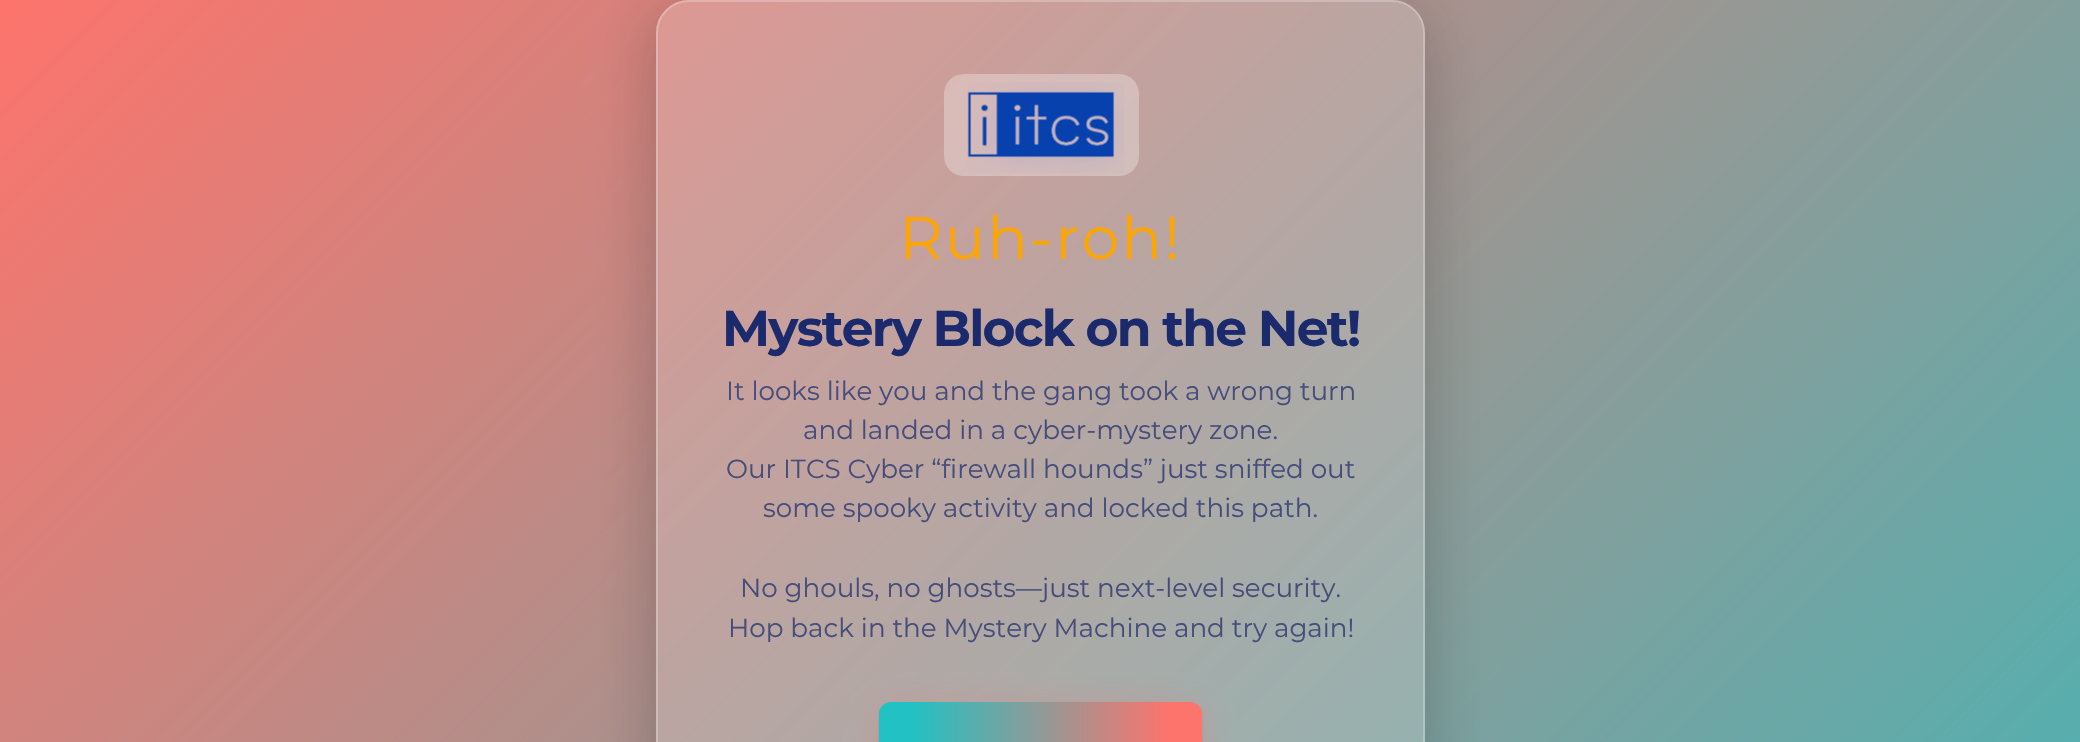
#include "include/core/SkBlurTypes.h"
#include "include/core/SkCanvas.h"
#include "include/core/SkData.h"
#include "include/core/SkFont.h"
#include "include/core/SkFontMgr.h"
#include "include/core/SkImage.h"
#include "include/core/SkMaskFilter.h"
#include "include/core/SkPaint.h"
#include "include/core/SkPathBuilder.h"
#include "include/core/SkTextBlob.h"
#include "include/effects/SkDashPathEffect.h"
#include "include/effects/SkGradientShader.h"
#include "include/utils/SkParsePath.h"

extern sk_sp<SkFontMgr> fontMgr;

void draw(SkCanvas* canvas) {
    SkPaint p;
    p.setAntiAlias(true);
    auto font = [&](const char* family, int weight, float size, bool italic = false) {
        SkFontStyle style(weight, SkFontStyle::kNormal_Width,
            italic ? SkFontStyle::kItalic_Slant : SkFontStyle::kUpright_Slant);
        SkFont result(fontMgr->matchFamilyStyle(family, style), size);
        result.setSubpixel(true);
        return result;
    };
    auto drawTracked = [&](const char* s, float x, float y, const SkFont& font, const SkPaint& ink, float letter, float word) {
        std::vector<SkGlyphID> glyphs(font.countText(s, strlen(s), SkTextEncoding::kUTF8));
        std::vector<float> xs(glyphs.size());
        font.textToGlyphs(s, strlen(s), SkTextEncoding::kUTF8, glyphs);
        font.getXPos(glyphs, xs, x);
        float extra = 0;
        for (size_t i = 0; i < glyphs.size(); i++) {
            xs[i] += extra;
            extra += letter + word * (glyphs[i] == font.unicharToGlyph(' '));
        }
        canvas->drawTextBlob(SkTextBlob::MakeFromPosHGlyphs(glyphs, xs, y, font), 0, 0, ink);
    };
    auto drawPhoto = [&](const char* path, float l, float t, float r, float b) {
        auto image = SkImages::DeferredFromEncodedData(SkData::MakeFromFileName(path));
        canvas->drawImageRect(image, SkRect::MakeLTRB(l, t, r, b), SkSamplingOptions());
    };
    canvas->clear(0xFFFFFFFF);
    {
        const SkColor colors[] = {0xFF1A2A6C, 0xFFFDBB2D, 0xFF22C1C3, 0xFFFD746C};
        const float stops[] = {0, 0.33f, 0.67f, 1};
        const SkPoint ends[] = {{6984, 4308}, {1338, -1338}};
        p.setShader(SkGradientShader::MakeLinear(ends, colors, stops, 4, SkTileMode::kClamp));
        p.setAlpha(255);
    }
    canvas->drawRect(SkRect::MakeLTRB(0, 0, 2080, 742), p);
    canvas->save();
    canvas->clipPath(SkPathBuilder(SkPathFillType::kEvenOdd).moveTo(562, 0).lineTo(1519, 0).lineTo(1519, 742).lineTo(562, 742).close().moveTo(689, 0).lineTo(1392, 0).cubicTo(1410, 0, 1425, 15, 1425, 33).lineTo(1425, 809).cubicTo(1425, 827, 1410, 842, 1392, 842).lineTo(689, 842).cubicTo(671, 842, 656, 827, 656, 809).lineTo(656, 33).cubicTo(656, 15, 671, 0, 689, 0).close().detach(), true);
    p.setShader(nullptr);
    p.setColor(0x401E1E1E);
    p.setMaskFilter(SkMaskFilter::MakeBlur(kNormal_SkBlurStyle, 30));
    canvas->drawRoundRect(SkRect::MakeLTRB(653, 9, 1428, 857), 36, 36, p);
    p.setMaskFilter(nullptr);
    canvas->restore();
    p.setColor(0x2EFFFFFF);
    canvas->drawRoundRect(SkRect::MakeLTRB(656, 0, 1425, 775), 33, 33, p);
    p.setStyle(SkPaint::kStroke_Style);
    p.setStrokeWidth(2);
    p.setColor(0x40FFFFFF);
    canvas->drawRoundRect(SkRect::MakeLTRB(657, 1, 1424, 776), 32, 32, p);
    p.setStyle(SkPaint::kFill_Style);
    p.setColor(0x4AFFFFFF);
    canvas->drawRoundRect(SkRect::MakeLTRB(944, 74, 1139, 176), 20, 20, p);
    drawPhoto("media/1.png", 967, 82, 1124, 173);
    auto font1 = font("Montserrat", 400, 60);
    p.setColor(0xFFFFA500);
    drawTracked("Ruh-roh!", 899, 259, font1, p, 2.25f, 0);
    auto font2 = font("Montserrat", 700, 50.4f);
    p.setColor(0xFF1A2A6C);
    drawTracked("Mystery Block on the Net!", 722, 346, font2, p, -1.8f, 0);
    auto font3 = font("Montserrat", 400, 26.2f);
    p.setColor(0xFF464D7B);
    {
        const struct { const char* s; float x, y; } items[] = {
            {"It looks like you and the gang took a wrong turn", 726, 400},
            {"and landed in a cyber-mystery zone.", 803, 439},
            {"Our ITCS Cyber “firewall hounds” just sniffed out", 726, 478},
            {"some spooky activity and locked this path.", 763, 517},
            {"No ghouls, no ghosts—just next-level security.", 740, 597},
            {"Hop back in the Mystery Machine and try again!", 728, 637},
        };
        for (auto [s, x, y] : items) {
            canvas->drawString(s, x, y, font3, p);
        }
    }
    p.setColor(0x21222222);
    p.setMaskFilter(SkMaskFilter::MakeBlur(kNormal_SkBlurStyle, 1.5f));
    canvas->drawRoundRect(SkRect::MakeLTRB(879, 704, 1202, 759), 12, 12, p);
    p.setMaskFilter(nullptr);
    p.setColor(0x54FD746C);
    p.setMaskFilter(SkMaskFilter::MakeBlur(kNormal_SkBlurStyle, 18));
    canvas->drawRoundRect(SkRect::MakeLTRB(879, 708, 1202, 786), 12, 12, p);
    p.setMaskFilter(nullptr);
    {
        const SkColor colors[] = {0xFF22C1C3, 0xFFFD746C};
        const float stops[] = {0.1f, 0.9f};
        const SkPoint ends[] = {{879, 741}, {1202, 741}};
        p.setShader(SkGradientShader::MakeLinear(ends, colors, stops, 2, SkTileMode::kClamp));
        p.setAlpha(255);
    }
    canvas->drawRoundRect(SkRect::MakeLTRB(879, 702, 1202, 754), 12, 12, p);
}
